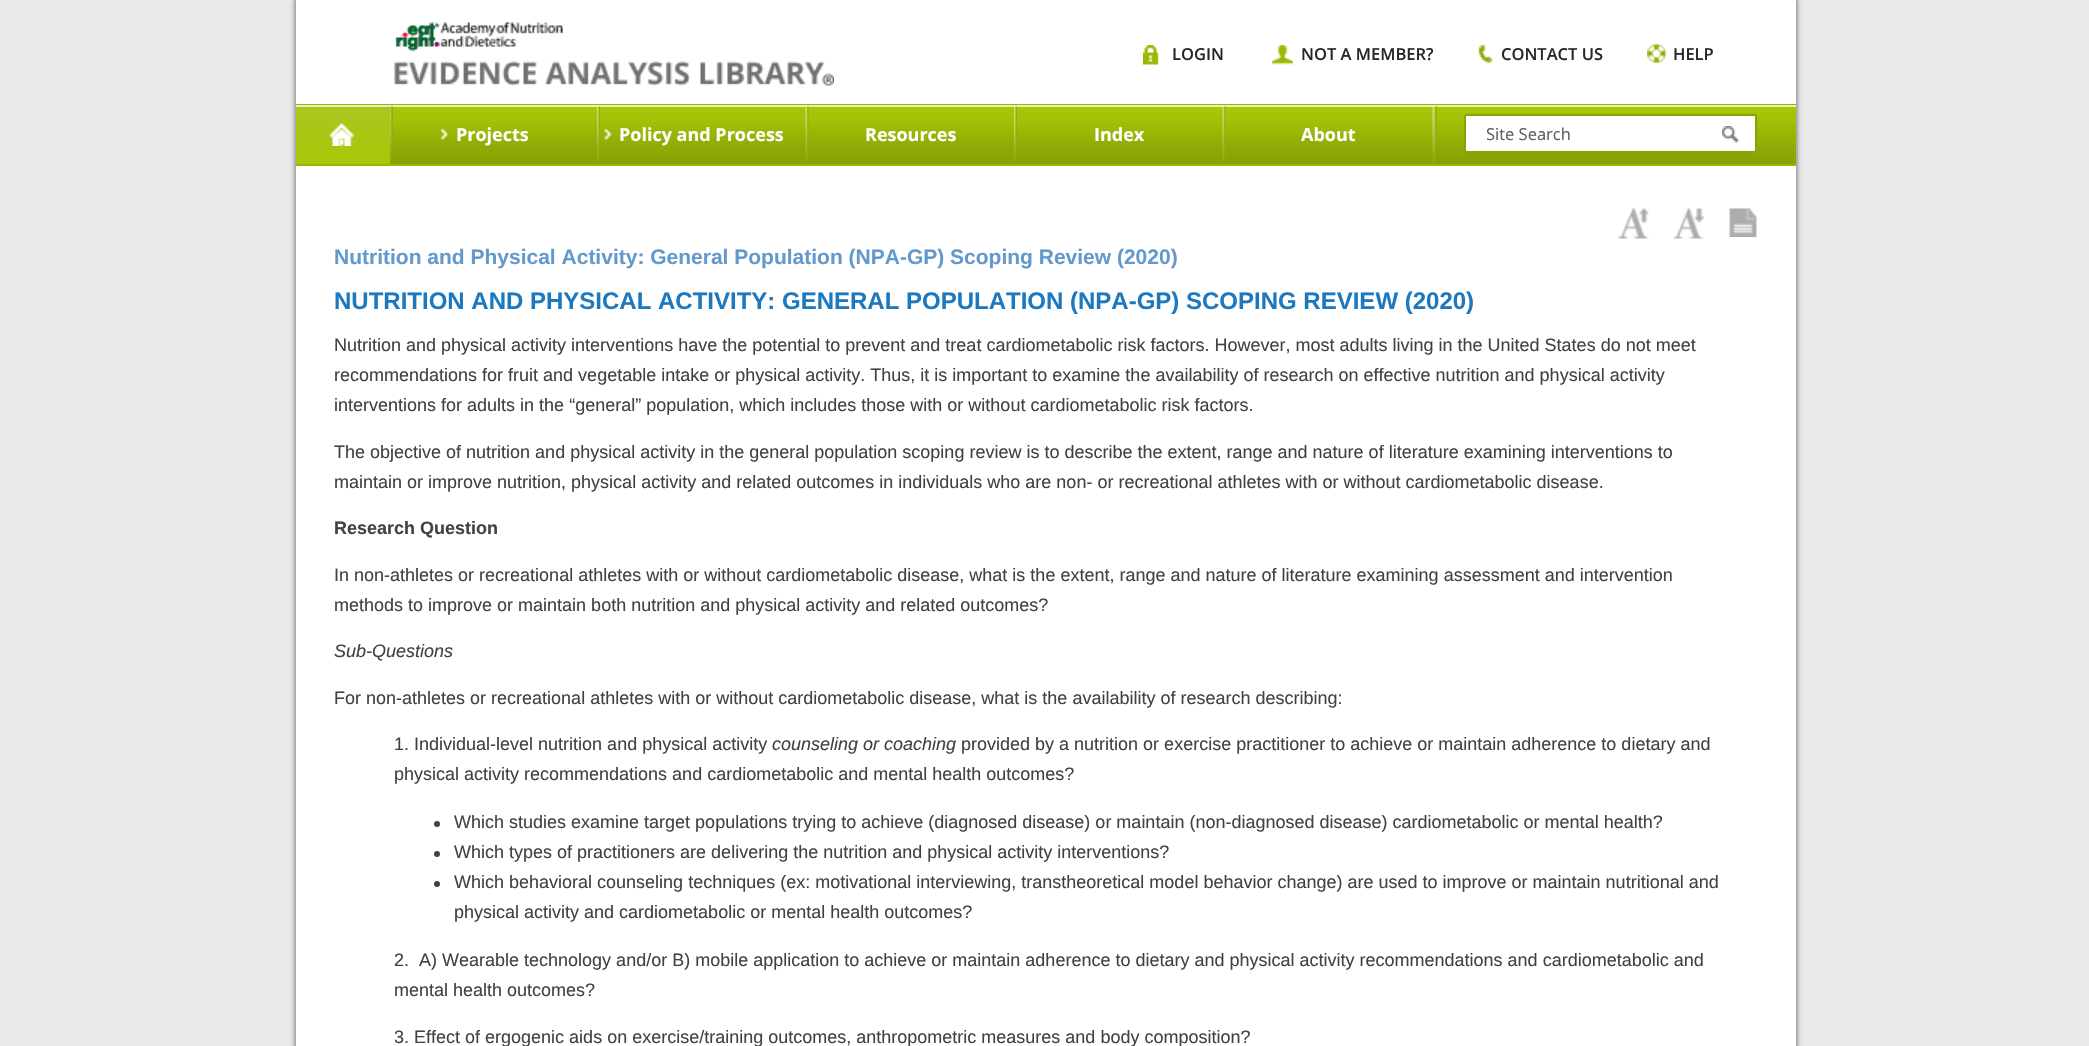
#include "include/core/SkBlurTypes.h"
#include "include/core/SkCanvas.h"
#include "include/core/SkData.h"
#include "include/core/SkFont.h"
#include "include/core/SkFontMgr.h"
#include "include/core/SkImage.h"
#include "include/core/SkMaskFilter.h"
#include "include/core/SkPaint.h"
#include "include/core/SkPathBuilder.h"
#include "include/core/SkTextBlob.h"
#include "include/effects/SkDashPathEffect.h"
#include "include/effects/SkGradientShader.h"
#include "include/utils/SkParsePath.h"

extern sk_sp<SkFontMgr> fontMgr;

void draw(SkCanvas* canvas) {
    SkPaint p;
    p.setAntiAlias(true);
    auto font = [&](const char* family, int weight, float size, bool italic = false) {
        SkFontStyle style(weight, SkFontStyle::kNormal_Width,
            italic ? SkFontStyle::kItalic_Slant : SkFontStyle::kUpright_Slant);
        SkFont result(fontMgr->matchFamilyStyle(family, style), size);
        result.setSubpixel(true);
        return result;
    };
    auto drawPhoto = [&](const char* path, float l, float t, float r, float b) {
        auto image = SkImages::DeferredFromEncodedData(SkData::MakeFromFileName(path));
        canvas->drawImageRect(image, SkRect::MakeLTRB(l, t, r, b), SkSamplingOptions());
    };
    canvas->clear(0xFFE9E9E9);
    p.setColor(0x33000000);
    p.setMaskFilter(SkMaskFilter::MakeBlur(kNormal_SkBlurStyle, 2));
    canvas->drawRect(SkRect::MakeLTRB(293, 0, 1799, 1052), p);
    p.setMaskFilter(nullptr);
    {
        const struct { float l, t, r, b; SkColor color; } items[] = {
            {296, 0, 1796, 1046, 0xFFFFFFFF},
            {1796, 0, 1798, 1046, 0xFFAFAFAF},
            {294, 0, 296, 1046, 0xFFAFAFAF},
        };
        for (auto [l, t, r, b, color] : items) {
            p.setColor(color);
            canvas->drawRect(SkRect::MakeLTRB(l, t, r, b), p);
        }
    }
    drawPhoto("media/1.png", 394, 22, 834, 86);
    p.setColor(0xFF99B600);
    canvas->drawPath(SkPathBuilder().moveTo(296, 104).lineTo(296, 105).lineTo(1796, 105).lineTo(1796, 164).lineTo(1796, 104).close().detach(), p);
    {
        const SkColor colors[] = {0xFFA9C808, 0xFFA3C107, 0xFF90AA05, 0xFF87A004};
        const float stops[] = {0, 0.24f, 0.7f, 1};
        const SkPoint ends[] = {{1046, 106}, {1046, 164}};
        p.setShader(SkGradientShader::MakeLinear(ends, colors, stops, 4, SkTileMode::kClamp));
        p.setAlpha(255);
    }
    canvas->drawRect(SkRect::MakeLTRB(390, 107, 1796, 164), p);
    p.setShader(nullptr);
    p.setColor(0xFFE7F0BA);
    canvas->drawRect(SkRect::MakeLTRB(296, 105, 1796, 107), p);
    p.setColor(0xFF99B600);
    canvas->drawRect(SkRect::MakeLTRB(296, 164, 1796, 166), p);
    drawPhoto("media/2.png", 1143, 45, 1159, 65);
    auto font1 = font("Open Sans", 600, 16.5f);
    p.setColor(0xFF272727);
    canvas->drawString("LOGIN", 1172, 60, font1, p);
    drawPhoto("media/3.png", 1272, 45, 1293, 65);
    canvas->drawString("NOT A MEMBER?", 1301, 60, font1, p);
    drawPhoto("media/4.png", 1478, 45, 1493, 63);
    canvas->drawString("CONTACT US", 1501, 60, font1, p);
    drawPhoto("media/5.png", 1647, 43, 1667, 63);
    canvas->drawString("HELP", 1673, 60, font1, p);
    drawPhoto("media/7.png", 388, 106, 393, 164);
    {
        const SkColor colors[] = {0xFFAAC520, 0xFFA8C708};
        const float stops[] = {0, 1};
        const SkPoint ends[] = {{343, 107}, {343, 164}};
        p.setShader(SkGradientShader::MakeLinear(ends, colors, stops, 2, SkTileMode::kClamp));
        p.setAlpha(255);
    }
    canvas->drawRect(SkRect::MakeLTRB(296, 107, 390, 164), p);
    drawPhoto("media/6.png", 329, 122, 355, 146);
    drawPhoto("media/8.png", 441, 129, 449, 140);
    auto font2 = font("Open Sans", 700, 18);
    p.setShader(nullptr);
    p.setColor(0xFFFFFFFF);
    canvas->drawString("Projects", 456, 141, font2, p);
    drawPhoto("media/9.png", 597, 106, 600, 164);
    drawPhoto("media/10.png", 604, 129, 612, 140);
    canvas->drawString("Policy and Process", 619, 141, font2, p);
    drawPhoto("media/11.png", 805, 106, 809, 164);
    canvas->drawString("Resources", 865, 141, font2, p);
    drawPhoto("media/12.png", 1014, 106, 1017, 164);
    canvas->drawString("Index", 1094, 141, font2, p);
    drawPhoto("media/11.png", 1222, 106, 1226, 164);
    canvas->drawString("About", 1301, 141, font2, p);
    drawPhoto("media/7.png", 1432, 106, 1437, 164);
    canvas->drawRoundRect(SkRect::MakeLTRB(1465, 115, 1756, 152), 2, 2, p);
    p.setStyle(SkPaint::kStroke_Style);
    p.setStrokeWidth(2);
    p.setColor(0xFF88A104);
    canvas->drawRoundRect(SkRect::MakeLTRB(1465, 115, 1756, 152), 2, 2, p);
    canvas->save();
    canvas->clipRect(SkRect::MakeLTRB(1487, 122, 1701, 144));
    auto font3 = font("Open Sans", 400, 16.5f);
    p.setStyle(SkPaint::kFill_Style);
    p.setColor(0xFF5C5C5C);
    canvas->drawString("Site Search", 1486, 140, font3, p);
    canvas->restore();
    drawPhoto("media/13.png", 1722, 126, 1739, 143);
    drawPhoto("media/14.png", 1618, 208, 1649, 239);
    drawPhoto("media/15.png", 1674, 208, 1704, 239);
    drawPhoto("media/16.png", 1729, 208, 1757, 237);
    auto font4 = font("Liberation Sans", 700, 21);
    p.setColor(0xFF6399CD);
    canvas->drawString("Nutrition and Physical Activity: General Population (NPA-GP) Scoping Review (2020)", 334, 264, font4, p);
    auto font5 = font("Liberation Sans", 700, 24);
    p.setColor(0xFF1D79BF);
    canvas->drawString("NUTRITION AND PHYSICAL ACTIVITY: GENERAL POPULATION (NPA-GP) SCOPING REVIEW (2020)", 334, 309, font5, p);
    auto font6 = font("Liberation Sans", 400, 18);
    p.setColor(0xFF424242);
    {
        const struct { const char* s; float x, y; } items[] = {
            {"Nutrition and physical activity interventions have the potential to prevent and treat cardiometabolic risk factors. However, most adults living in the United States do not meet", 334, 351},
            {"recommendations for fruit and vegetable intake or physical activity. Thus, it is important to examine the availability of research on effective nutrition and physical activity", 334, 381},
            {"interventions for adults in the “general” population, which includes those with or without cardiometabolic risk factors.", 334, 411},
            {"The objective of nutrition and physical activity in the general population scoping review is to describe the extent, range and nature of literature examining interventions to", 334, 458},
            {"maintain or improve nutrition, physical activity and related outcomes in individuals who are non- or recreational athletes with or without cardiometabolic disease.", 334, 488},
        };
        for (auto [s, x, y] : items) {
            canvas->drawString(s, x, y, font6, p);
        }
    }
    auto font7 = font("Liberation Sans", 700, 18);
    canvas->drawString("Research Question", 334, 534, font7, p);
    canvas->drawString("In non-athletes or recreational athletes with or without cardiometabolic disease, what is the extent, range and nature of literature examining assessment and intervention", 334, 581, font6, p);
    canvas->drawString("methods to improve or maintain both nutrition and physical activity and related outcomes?", 334, 611, font6, p);
    auto font8 = font("Liberation Sans", 400, 18, true);
    canvas->drawString("Sub-Questions", 334, 657, font8, p);
    canvas->drawString("For non-athletes or recreational athletes with or without cardiometabolic disease, what is the availability of research describing:", 334, 704, font6, p);
    canvas->drawString("1. Individual-level nutrition and physical activity", 394, 750, font6, p);
    canvas->drawString("counseling or coaching", 772, 750, font8, p);
    canvas->drawString("provided by a nutrition or exercise practitioner to achieve or maintain adherence to dietary and", 961, 750, font6, p);
    canvas->drawString("physical activity recommendations and cardiometabolic and mental health outcomes?", 394, 780, font6, p);
    canvas->drawCircle(437, 824, 3, p);
    canvas->drawString("Which studies examine target populations trying to achieve (diagnosed disease) or maintain (non-diagnosed disease) cardiometabolic or mental health?", 454, 828, font6, p);
    canvas->drawCircle(437, 854, 3, p);
    canvas->drawString("Which types of practitioners are delivering the nutrition and physical activity interventions?", 454, 858, font6, p);
    canvas->drawCircle(437, 884, 3, p);
    {
        const struct { const char* s; float x, y; } items[] = {
            {"Which behavioral counseling techniques (ex: motivational interviewing, transtheoretical model behavior change) are used to improve or maintain nutritional and", 454, 888},
            {"physical activity and cardiometabolic or mental health outcomes?", 454, 918},
            {"2.  A) Wearable technology and/or B) mobile application to achieve or maintain adherence to dietary and physical activity recommendations and cardiometabolic and", 394, 966},
            {"mental health outcomes?", 394, 996},
            {"3. Effect of ergogenic aids on exercise/training outcomes, anthropometric measures and body composition?", 394, 1043},
        };
        for (auto [s, x, y] : items) {
            canvas->drawString(s, x, y, font6, p);
        }
    }
}
